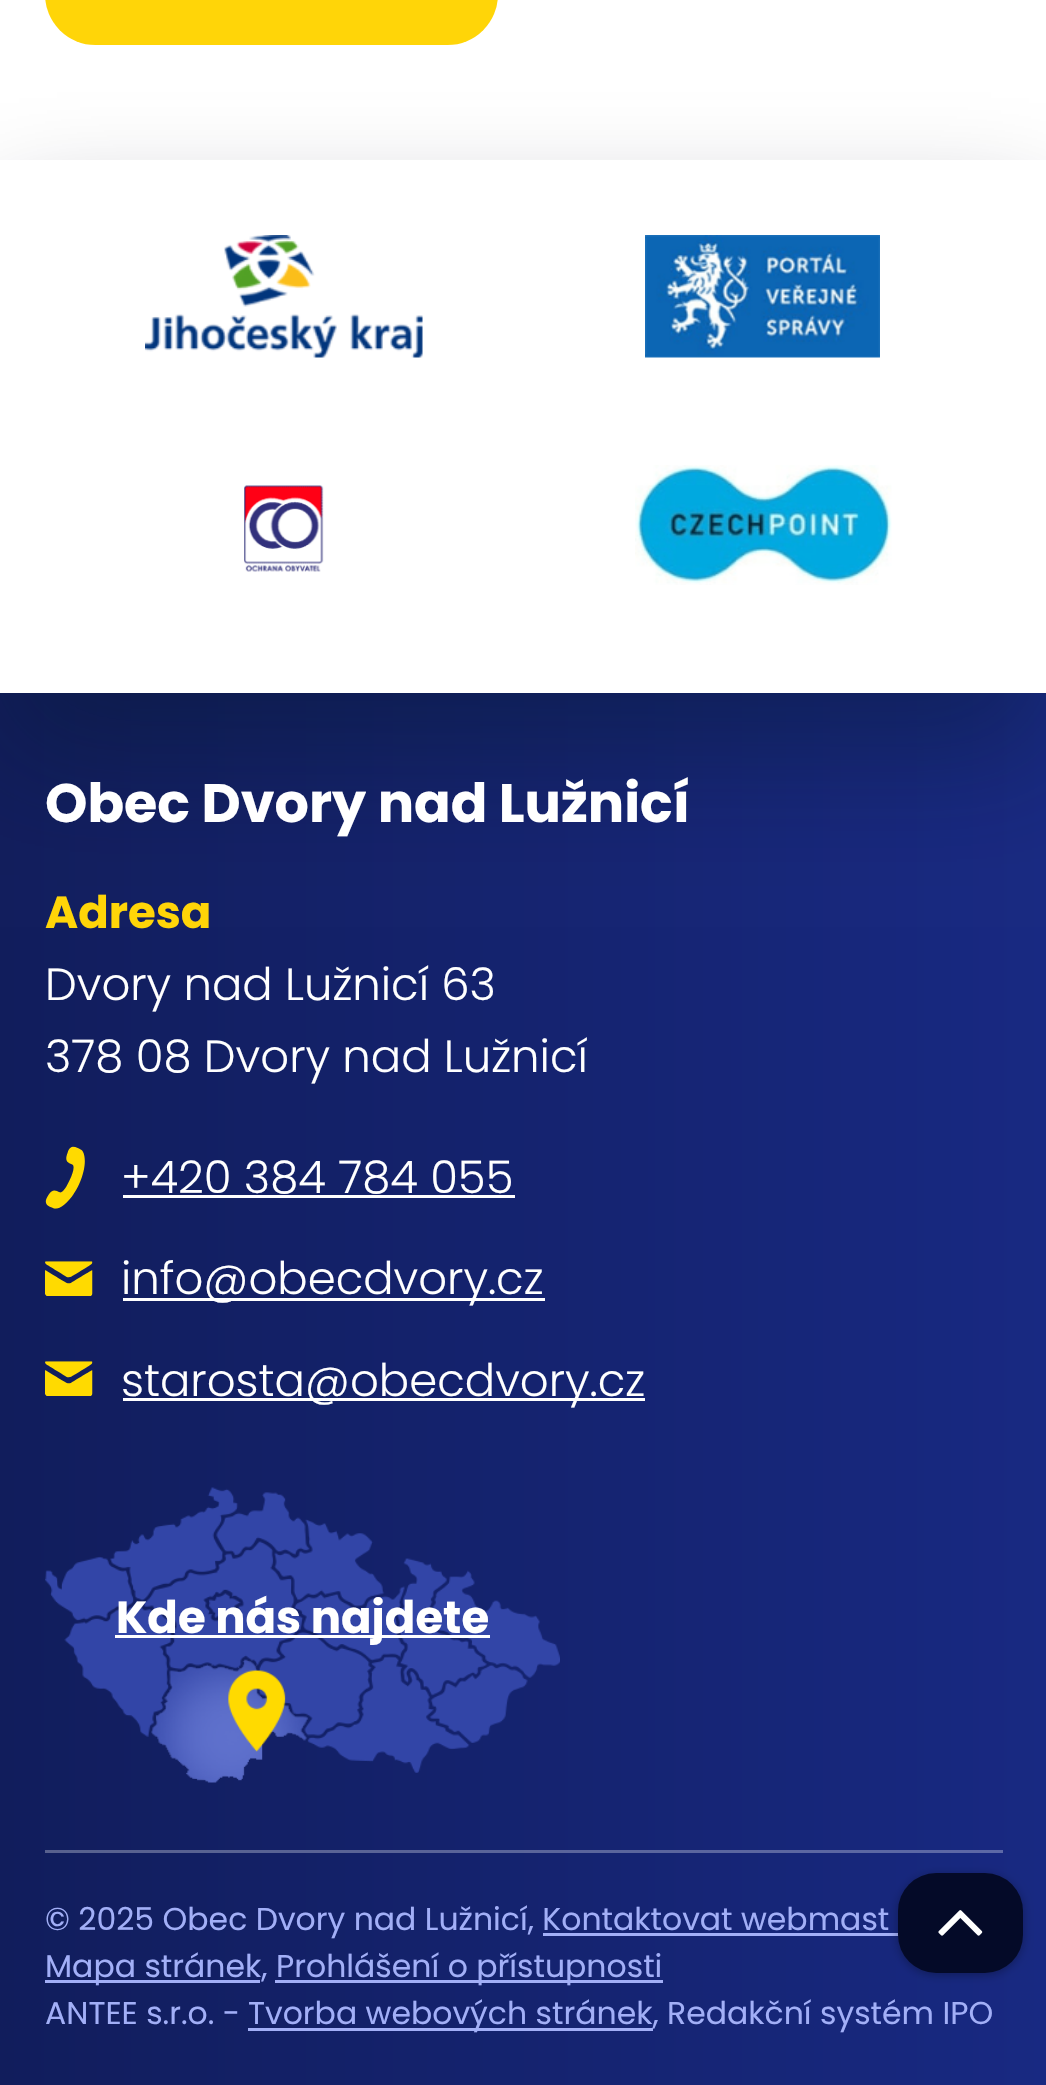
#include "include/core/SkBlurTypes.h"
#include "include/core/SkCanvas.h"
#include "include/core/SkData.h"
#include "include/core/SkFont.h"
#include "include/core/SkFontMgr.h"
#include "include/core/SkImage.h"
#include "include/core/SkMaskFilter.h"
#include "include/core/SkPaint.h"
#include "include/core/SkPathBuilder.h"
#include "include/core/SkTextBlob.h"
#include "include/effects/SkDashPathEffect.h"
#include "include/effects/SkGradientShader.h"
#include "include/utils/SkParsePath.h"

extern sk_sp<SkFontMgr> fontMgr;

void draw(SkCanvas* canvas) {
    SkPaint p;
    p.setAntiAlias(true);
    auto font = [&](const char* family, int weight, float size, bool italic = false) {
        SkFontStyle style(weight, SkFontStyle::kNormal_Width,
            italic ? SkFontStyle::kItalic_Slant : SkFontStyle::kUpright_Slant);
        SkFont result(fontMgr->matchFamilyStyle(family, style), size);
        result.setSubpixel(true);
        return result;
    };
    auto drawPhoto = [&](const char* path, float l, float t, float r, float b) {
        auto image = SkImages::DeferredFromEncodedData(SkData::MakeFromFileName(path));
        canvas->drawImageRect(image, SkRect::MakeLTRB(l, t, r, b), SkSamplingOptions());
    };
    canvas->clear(0xFFFFFFFF);
    p.setColor(0xFFFFD508);
    canvas->drawRoundRect(SkRect::MakeLTRB(45, -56, 498, 45), 56, 56, p);
    {
        const SkColor colors[] = {0xFF111D5C, 0xFF182982};
        const float stops[] = {0, 1};
        const SkPoint ends[] = {{0, 1123}, {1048, 1123}};
        p.setShader(SkGradientShader::MakeLinear(ends, colors, stops, 2, SkTileMode::kClamp));
        p.setAlpha(255);
    }
    canvas->drawRect(SkRect::MakeLTRB(0, 693, 1046, 2085), p);
    p.setShader(nullptr);
    p.setColor(0xFFA2AFF7);
    canvas->drawRect(SkRect::MakeLTRB(543, 1933, 899, 1936), p);
    p.setColor(0x4D000000);
    p.setMaskFilter(SkMaskFilter::MakeBlur(kNormal_SkBlurStyle, 5));
    canvas->drawRoundRect(SkRect::MakeLTRB(898, 1875, 1023, 1975), 38, 38, p);
    p.setMaskFilter(nullptr);
    p.setColor(0xFF040A28);
    canvas->drawRoundRect(SkRect::MakeLTRB(898, 1873, 1023, 1973), 38, 38, p);
    drawPhoto("media/1.png", 938, 1910, 983, 1936);
    {
        const SkColor colors[] = {0xFF58618D, 0xFF5D69A8};
        const float stops[] = {0, 1};
        const SkPoint ends[] = {{0, 1123}, {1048, 1123}};
        p.setShader(SkGradientShader::MakeLinear(ends, colors, stops, 2, SkTileMode::kClamp));
        p.setAlpha(255);
    }
    canvas->drawRect(SkRect::MakeLTRB(45, 1850, 1003, 1853), p);
    p.setShader(nullptr);
    p.setColor(0x59021426);
    p.setMaskFilter(SkMaskFilter::MakeBlur(kNormal_SkBlurStyle, 57.5f));
    canvas->drawRect(SkRect::MakeLTRB(0, 223, 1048, 755), p);
    p.setMaskFilter(nullptr);
    p.setColor(0xFFFFFFFF);
    canvas->drawRect(SkRect::MakeLTRB(0, 160, 1046, 693), p);
    drawPhoto("media/2.png", 145, 235, 423, 358);
    drawPhoto("media/3.png", 645, 235, 880, 358);
    drawPhoto("media/4.png", 244, 485, 324, 572);
    drawPhoto("media/5.png", 635, 465, 892, 585);
    auto font1 = font("Poppins", 700, 54);
    canvas->drawString("Obec Dvory nad Lužnicí", 45, 822, font1, p);
    auto font2 = font("Poppins", 700, 45);
    p.setColor(0xFFFFD508);
    canvas->drawString("Adresa", 45, 928, font2, p);
    auto font3 = font("Poppins", 300, 45);
    p.setColor(0xFFFFFFFF);
    canvas->drawString("Dvory nad Lužnicí 63", 45, 1000, font3, p);
    canvas->drawString("378 08 Dvory nad Lužnicí", 45, 1072, font3, p);
    drawPhoto("media/6.png", 45, 1146, 85, 1209);
    canvas->drawString("+420 384 784 055", 121, 1193, font3, p);
    canvas->drawRect(SkRect::MakeLTRB(123, 1195, 515, 1198), p);
    drawPhoto("media/7.png", 45, 1261, 93, 1296);
    canvas->drawRect(SkRect::MakeLTRB(123, 1298, 545, 1301), p);
    canvas->drawString("info@obecdvory.cz", 121, 1294, font3, p);
    drawPhoto("media/7.png", 45, 1361, 93, 1396);
    canvas->drawRect(SkRect::MakeLTRB(123, 1398, 645, 1401), p);
    canvas->drawString("starosta@obecdvory.cz", 121, 1396, font3, p);
    drawPhoto("media/8.png", 45, 1487, 560, 1783);
    canvas->drawRect(SkRect::MakeLTRB(115, 1635, 490, 1638), p);
    canvas->drawString("Kde nás najdete", 116, 1633, font2, p);
    auto font4 = font("Poppins", 400, 31.5f);
    p.setColor(0xFFA2AFF7);
    canvas->drawString("© 2025 Obec Dvory nad Lužnicí, Kontaktovat webmast", 45, 1930, font4, p);
    canvas->drawRect(SkRect::MakeLTRB(45, 1980, 260, 1983), p);
    canvas->drawString("Mapa stránek,", 45, 1977, font4, p);
    canvas->drawRect(SkRect::MakeLTRB(275, 1980, 663, 1983), p);
    canvas->drawString("Prohlášení o přístupnosti", 276, 1977, font4, p);
    canvas->drawString("ANTEE s.r.o. -", 45, 2024, font4, p);
    canvas->drawRect(SkRect::MakeLTRB(248, 2028, 653, 2031), p);
    canvas->drawString("Tvorba webových stránek, Redakční systém IPO", 248, 2024, font4, p);
}
